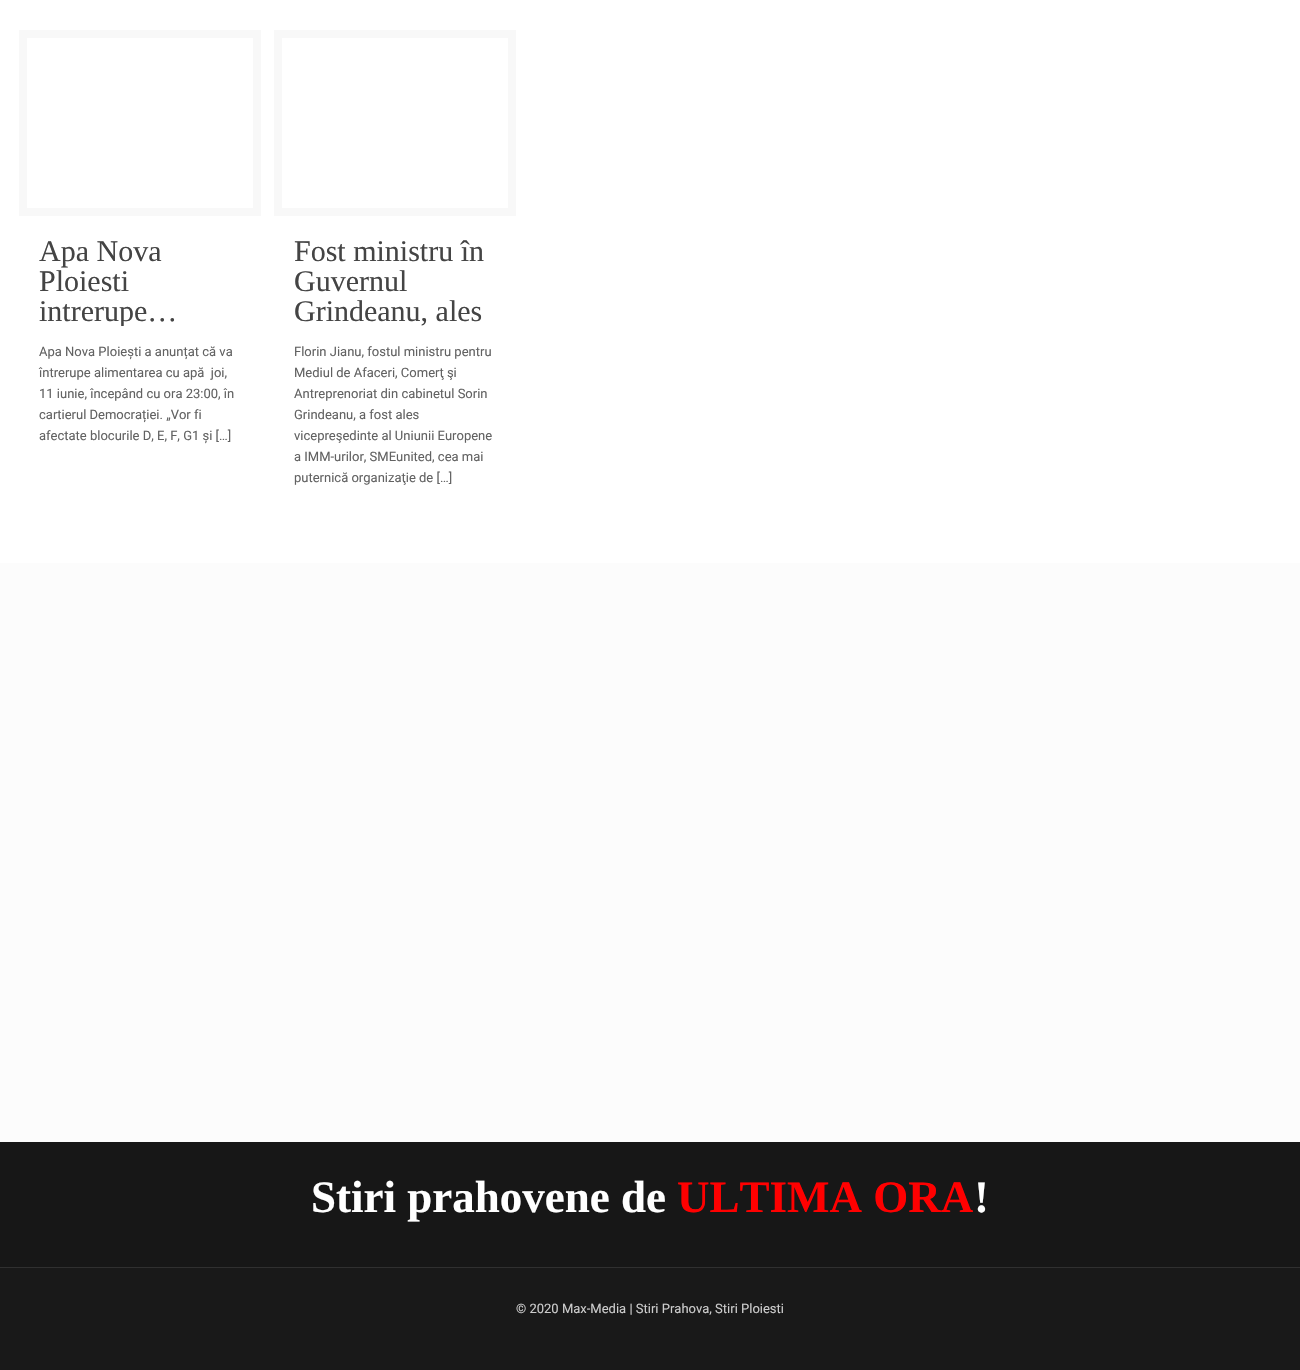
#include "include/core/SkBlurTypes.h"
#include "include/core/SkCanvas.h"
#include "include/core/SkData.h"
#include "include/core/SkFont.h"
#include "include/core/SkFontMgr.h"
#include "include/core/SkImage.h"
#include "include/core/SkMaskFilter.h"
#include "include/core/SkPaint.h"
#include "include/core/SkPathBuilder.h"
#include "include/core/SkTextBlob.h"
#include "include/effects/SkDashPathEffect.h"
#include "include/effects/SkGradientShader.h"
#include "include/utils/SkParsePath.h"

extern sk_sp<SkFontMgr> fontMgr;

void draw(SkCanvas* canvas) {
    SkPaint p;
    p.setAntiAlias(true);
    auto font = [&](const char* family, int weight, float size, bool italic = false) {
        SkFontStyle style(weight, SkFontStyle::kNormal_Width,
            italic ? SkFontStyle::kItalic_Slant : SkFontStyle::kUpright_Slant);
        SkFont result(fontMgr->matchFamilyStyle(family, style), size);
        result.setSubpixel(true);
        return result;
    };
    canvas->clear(0xFFFCFCFC);
    p.setColor(0xFFFFFFFF);
    canvas->drawRect(SkRect::MakeLTRB(0, 0, 1300, 563), p);
    p.setStyle(SkPaint::kStroke_Style);
    p.setStrokeWidth(8);
    p.setColor(0xFFF8F8F8);
    canvas->drawRect(SkRect::MakeLTRB(23, 34, 257, 212), p);
    auto font1 = font("Liberation Serif", 400, 30);
    p.setStyle(SkPaint::kFill_Style);
    p.setColor(0xFF444444);
    canvas->drawString("Apa Nova", 39, 261, font1, p);
    canvas->drawString("Ploiesti", 39, 291, font1, p);
    canvas->save();
    canvas->clipRect(SkRect::MakeLTRB(39, 236, 241, 326));
    canvas->drawString("intrerupe…", 39, 321, font1, p);
    canvas->restore();
    auto font2 = font("Roboto", 400, 13);
    p.setColor(0xFF626262);
    {
        const struct { const char* s; float x, y; } items[] = {
            {"Apa Nova Ploiești a anunțat că va", 39, 356},
            {"întrerupe alimentarea cu apă  joi,", 39, 377},
            {"11 iunie, începând cu ora 23:00, în", 39, 398},
            {"cartierul Democrației. „Vor fi", 39, 419},
            {"afectate blocurile D, E, F, G1 și […]", 39, 440},
        };
        for (auto [s, x, y] : items) {
            canvas->drawString(s, x, y, font2, p);
        }
    }
    p.setStyle(SkPaint::kStroke_Style);
    p.setColor(0xFFF8F8F8);
    canvas->drawRect(SkRect::MakeLTRB(278, 34, 512, 212), p);
    p.setStyle(SkPaint::kFill_Style);
    p.setColor(0xFF444444);
    {
        const struct { const char* s; float x, y; } items[] = {
            {"Fost ministru în", 294, 261},
            {"Guvernul", 294, 291},
            {"Grindeanu, ales", 294, 321},
        };
        for (auto [s, x, y] : items) {
            canvas->drawString(s, x, y, font1, p);
        }
    }
    p.setColor(0xFF626262);
    {
        const struct { const char* s; float x, y; } items[] = {
            {"Florin Jianu, fostul ministru pentru", 294, 356},
            {"Mediul de Afaceri, Comerţ şi", 294, 377},
            {"Antreprenoriat din cabinetul Sorin", 294, 398},
            {"Grindeanu, a fost ales", 294, 419},
            {"vicepreşedinte al Uniunii Europene", 294, 440},
            {"a IMM-urilor, SMEunited, cea mai", 294, 461},
            {"puternică organizaţie de […]", 294, 482},
        };
        for (auto [s, x, y] : items) {
            canvas->drawString(s, x, y, font2, p);
        }
    }
    p.setColor(0xFF191919);
    canvas->drawRect(SkRect::MakeLTRB(0, 1268, 1300, 1370), p);
    p.setColor(0xFF171717);
    canvas->drawRect(SkRect::MakeLTRB(0, 1142, 1300, 1267), p);
    auto font3 = font("Liberation Serif", 700, 45);
    p.setColor(0xFFFFFFFF);
    canvas->drawString("Stiri prahovene de", 311, 1212, font3, p);
    p.setColor(0xFFFF0000);
    canvas->drawString("ULTIMA ORA", 677, 1212, font3, p);
    p.setColor(0xFFFFFFFF);
    canvas->drawString("!", 974, 1212, font3, p);
    p.setColor(0xFF303030);
    canvas->drawRect(SkRect::MakeLTRB(0, 1267, 1300, 1268), p);
    p.setColor(0xFFCCCCCC);
    canvas->drawString("© 2020 Max-Media | Stiri Prahova, Stiri Ploiesti", 516, 1313, font2, p);
}
